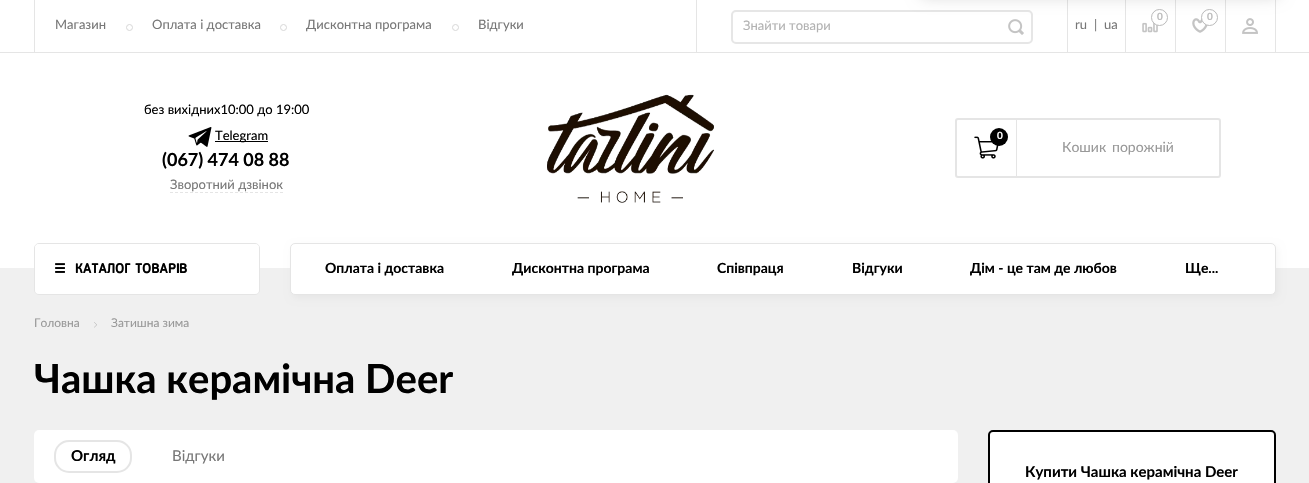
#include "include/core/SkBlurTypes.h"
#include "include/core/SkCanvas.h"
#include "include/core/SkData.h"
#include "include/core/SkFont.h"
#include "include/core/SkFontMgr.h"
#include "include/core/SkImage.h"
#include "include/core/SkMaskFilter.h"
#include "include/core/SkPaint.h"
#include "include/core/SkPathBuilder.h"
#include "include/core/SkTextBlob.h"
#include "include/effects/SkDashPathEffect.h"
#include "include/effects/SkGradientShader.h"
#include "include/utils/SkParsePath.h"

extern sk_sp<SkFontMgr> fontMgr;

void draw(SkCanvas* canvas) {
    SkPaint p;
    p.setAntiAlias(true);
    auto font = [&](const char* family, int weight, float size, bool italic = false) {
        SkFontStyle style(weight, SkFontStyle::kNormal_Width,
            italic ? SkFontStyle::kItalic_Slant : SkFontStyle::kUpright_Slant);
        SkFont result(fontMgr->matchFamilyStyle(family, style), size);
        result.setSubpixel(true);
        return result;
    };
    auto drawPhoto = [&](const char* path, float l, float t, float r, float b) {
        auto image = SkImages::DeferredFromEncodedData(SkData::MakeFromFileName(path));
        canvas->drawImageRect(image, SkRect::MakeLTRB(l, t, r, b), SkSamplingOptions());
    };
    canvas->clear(0xFFF0F0F0);
    {
        const struct { float l, t, r, b; SkColor color; } items[] = {
            {0, 0, 1309, 52, 0xFFFFFFFF},
            {0, 52, 1309, 53, 0xFFE5E5E5},
            {1275, 0, 1276, 52, 0xFFE5E5E5},
            {34, 0, 35, 52, 0xFFE5E5E5},
        };
        for (auto [l, t, r, b, color] : items) {
            p.setColor(color);
            canvas->drawRect(SkRect::MakeLTRB(l, t, r, b), p);
        }
    }
    auto font1 = font("Lato", 400, 13);
    p.setColor(0xFF777777);
    canvas->drawString("Магазин", 55, 29, font1, p);
    p.setStyle(SkPaint::kStroke_Style);
    p.setStrokeWidth(1);
    p.setColor(0xFFD7D7D7);
    canvas->drawCircle(129.5f, 27.5f, 3, p);
    p.setStyle(SkPaint::kFill_Style);
    p.setColor(0xFF777777);
    canvas->drawString("Оплата і доставка", 152, 29, font1, p);
    p.setStyle(SkPaint::kStroke_Style);
    p.setColor(0xFFD7D7D7);
    canvas->drawCircle(283.5f, 27.5f, 3, p);
    p.setStyle(SkPaint::kFill_Style);
    p.setColor(0xFF777777);
    canvas->drawString("Дисконтна програма", 306, 29, font1, p);
    p.setStyle(SkPaint::kStroke_Style);
    p.setColor(0xFFD7D7D7);
    canvas->drawCircle(455.5f, 27.5f, 3, p);
    p.setStyle(SkPaint::kFill_Style);
    p.setColor(0xFF777777);
    canvas->drawString("Відгуки", 478, 29, font1, p);
    p.setColor(0xFFE5E5E5);
    canvas->drawRect(SkRect::MakeLTRB(696, 0, 697, 52), p);
    p.setStyle(SkPaint::kStroke_Style);
    p.setStrokeWidth(2);
    p.setColor(0xFFE6E6E6);
    canvas->drawRoundRect(SkRect::MakeLTRB(732, 11, 1032, 43), 4, 4, p);
    p.setStyle(SkPaint::kFill_Style);
    p.setColor(0xFFB2B2B2);
    canvas->drawString("Знайти товари", 743, 30, font1, p);
    drawPhoto("media/1.png", 1008, 19, 1024, 35);
    p.setColor(0xFFE5E5E5);
    canvas->drawRect(SkRect::MakeLTRB(1125, 0, 1126, 52), p);
    drawPhoto("media/2.png", 1142, 22, 1158, 33);
    p.setColor(0xFFFFFFFF);
    canvas->drawCircle(1159.5f, 17.5f, 8, p);
    p.setStyle(SkPaint::kStroke_Style);
    p.setStrokeWidth(1);
    p.setColor(0xFFBABABA);
    canvas->drawCircle(1159.5f, 17.5f, 8, p);
    auto font2 = font("Lato", 700, 10);
    p.setStyle(SkPaint::kFill_Style);
    p.setColor(0xFFBCBCBC);
    canvas->drawString("0", 1157, 20, font2, p);
    p.setColor(0xFFE5E5E5);
    canvas->drawRect(SkRect::MakeLTRB(1175, 0, 1176, 52), p);
    drawPhoto("media/3.png", 1192, 18, 1208, 33);
    p.setColor(0xFFFFFFFF);
    canvas->drawCircle(1209.5f, 17.5f, 8, p);
    p.setStyle(SkPaint::kStroke_Style);
    p.setColor(0xFFBABABA);
    canvas->drawCircle(1209.5f, 17.5f, 8, p);
    p.setStyle(SkPaint::kFill_Style);
    p.setColor(0xFFBCBCBC);
    canvas->drawString("0", 1207, 20, font2, p);
    p.setColor(0xFFE5E5E5);
    canvas->drawRect(SkRect::MakeLTRB(1225, 0, 1226, 52), p);
    drawPhoto("media/4.png", 1242, 18, 1258, 34);
    canvas->drawRect(SkRect::MakeLTRB(1067, 0, 1068, 52), p);
    p.setColor(0xFF777777);
    {
        const struct { const char* s; float x, y; } items[] = {
            {"ru", 1075, 29},
            {"|", 1094, 29},
            {"ua", 1104, 29},
        };
        for (auto [s, x, y] : items) {
            canvas->drawString(s, x, y, font1, p);
        }
    }
    p.setColor(0xFFFFFFFF);
    canvas->drawRect(SkRect::MakeLTRB(0, 53, 1309, 268), p);
    p.setColor(0xFF000000);
    canvas->drawString("без вихідних10:00 до 19:00", 144, 114, font1, p);
    drawPhoto("media/5.png", 188, 127, 212, 147);
    canvas->drawRect(SkRect::MakeLTRB(215, 141, 268, 142), p);
    canvas->drawString("Telegram", 215, 140, font1, p);
    auto font3 = font("Lato", 700, 18);
    canvas->drawString("(067) 474 08 88", 162, 166, font3, p);
    p.setColor(0xFF777777);
    canvas->drawString("Зворотний дзвінок", 170, 189, font1, p);
    p.setStyle(SkPaint::kStroke_Style);
    p.setColor(0xFFE5E5E5);
    p.setPathEffect(SkDashPathEffect::Make({{3, 2}}, 0));
    canvas->drawPath(SkPathBuilder().moveTo(170, 192.5f).lineTo(283, 192.5f).detach(), p);
    p.setPathEffect(nullptr);
    drawPhoto("media/6.png", 547, 94, 714, 203);
    p.setStrokeWidth(2);
    canvas->drawRoundRect(SkRect::MakeLTRB(956, 119, 1220, 177), 2, 2, p);
    p.setStyle(SkPaint::kFill_Style);
    canvas->drawRect(SkRect::MakeLTRB(1016, 120, 1017, 176), p);
    drawPhoto("media/7.png", 974, 136, 999, 159);
    p.setColor(0xFF000000);
    canvas->drawCircle(999, 137, 9, p);
    p.setColor(0xFFFFFFFF);
    canvas->drawString("0", 997, 139, font2, p);
    auto font4 = font("Lato", 400, 14);
    p.setColor(0xFF999999);
    canvas->drawString("Кошик", 1062, 152, font4, p);
    canvas->drawString("порожній", 1112, 152, font4, p);
    p.setStyle(SkPaint::kStroke_Style);
    p.setStrokeWidth(1);
    p.setColor(0xFFE5E5E5);
    canvas->drawRoundRect(SkRect::MakeLTRB(34.5f, 243.5f, 259.5f, 294.5f), 4.5f, 4.5f, p);
    p.setStyle(SkPaint::kFill_Style);
    p.setColor(0xFFFFFFFF);
    canvas->drawRoundRect(SkRect::MakeLTRB(35, 244, 259, 294), 4, 4, p);
    drawPhoto("media/8.png", 55, 263, 65, 273);
    auto font5 = font("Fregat", 700, 14);
    p.setColor(0xFF000000);
    canvas->drawString("КАТАЛОГ ТОВАР", 75, 273, font5, p);
    auto font6 = font("Liberation Sans", 700, 14);
    canvas->drawString("І", 176, 273, font6, p);
    canvas->drawString("В", 179, 273, font5, p);
    p.setColor(0x0A000000);
    p.setMaskFilter(SkMaskFilter::MakeBlur(kNormal_SkBlurStyle, 3.5f));
    canvas->drawRoundRect(SkRect::MakeLTRB(292, 246, 1278, 298), 5, 5, p);
    p.setMaskFilter(nullptr);
    p.setColor(0xFFFFFFFF);
    canvas->drawRoundRect(SkRect::MakeLTRB(290.5f, 243.5f, 1275.5f, 294.5f), 4.5f, 4.5f, p);
    p.setStyle(SkPaint::kStroke_Style);
    p.setColor(0xFFE5E5E5);
    canvas->drawRoundRect(SkRect::MakeLTRB(290.5f, 243.5f, 1275.5f, 294.5f), 4.5f, 4.5f, p);
    auto font7 = font("Lato", 700, 14);
    p.setStyle(SkPaint::kFill_Style);
    p.setColor(0xFF000000);
    {
        const struct { const char* s; float x, y; } items[] = {
            {"Оплата і доставка", 325, 273},
            {"Дисконтна програма", 512, 273},
            {"Cпівпраця", 717, 273},
            {"Відгуки", 852, 273},
            {"Дім - це там де любов", 970, 273},
            {"Ще...", 1185, 273},
        };
        for (auto [s, x, y] : items) {
            canvas->drawString(s, x, y, font7, p);
        }
    }
    p.setColor(0x2E000000);
    p.setMaskFilter(SkMaskFilter::MakeBlur(kNormal_SkBlurStyle, 8));
    canvas->drawRoundRect(SkRect::MakeLTRB(921, -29, 1279, -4), 5, 5, p);
    p.setMaskFilter(nullptr);
    auto font8 = font("Lato", 400, 12);
    p.setColor(0xFF999999);
    canvas->drawString("Головна", 34, 327, font8, p);
    drawPhoto("media/9.png", 94, 322, 97, 328);
    canvas->drawString("Затишна зима", 111, 327, font8, p);
    auto font9 = font("Lato", 700, 40);
    p.setColor(0xFF000000);
    canvas->drawString("Чашка керамічна Deer", 34, 393, font9, p);
    p.setColor(0xFFFFFFFF);
    canvas->drawRoundRect(SkRect::MakeLTRB(34, 430, 958, 483), 5, 5, p);
    p.setStyle(SkPaint::kStroke_Style);
    p.setStrokeWidth(2);
    p.setColor(0xFFE5E5E5);
    canvas->drawRoundRect(SkRect::MakeLTRB(55, 441, 131, 472), 14, 14, p);
    auto font10 = font("Lato", 700, 15);
    p.setStyle(SkPaint::kFill_Style);
    p.setColor(0xFF000000);
    canvas->drawString("Огляд", 71, 461, font10, p);
    auto font11 = font("Lato", 400, 15);
    p.setColor(0xFF777777);
    canvas->drawString("Відгуки", 172, 461, font11, p);
    p.setColor(0xFFFFFFFF);
    canvas->drawRoundRect(SkRect::MakeLTRB(989, 431, 1275, 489), 4, 4, p);
    p.setStyle(SkPaint::kStroke_Style);
    p.setColor(0xFF000000);
    canvas->drawRoundRect(SkRect::MakeLTRB(989, 431, 1275, 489), 4, 4, p);
    p.setStyle(SkPaint::kFill_Style);
    canvas->drawString("Купити Чашка керамічна Deer", 1025, 477, font10, p);
}
